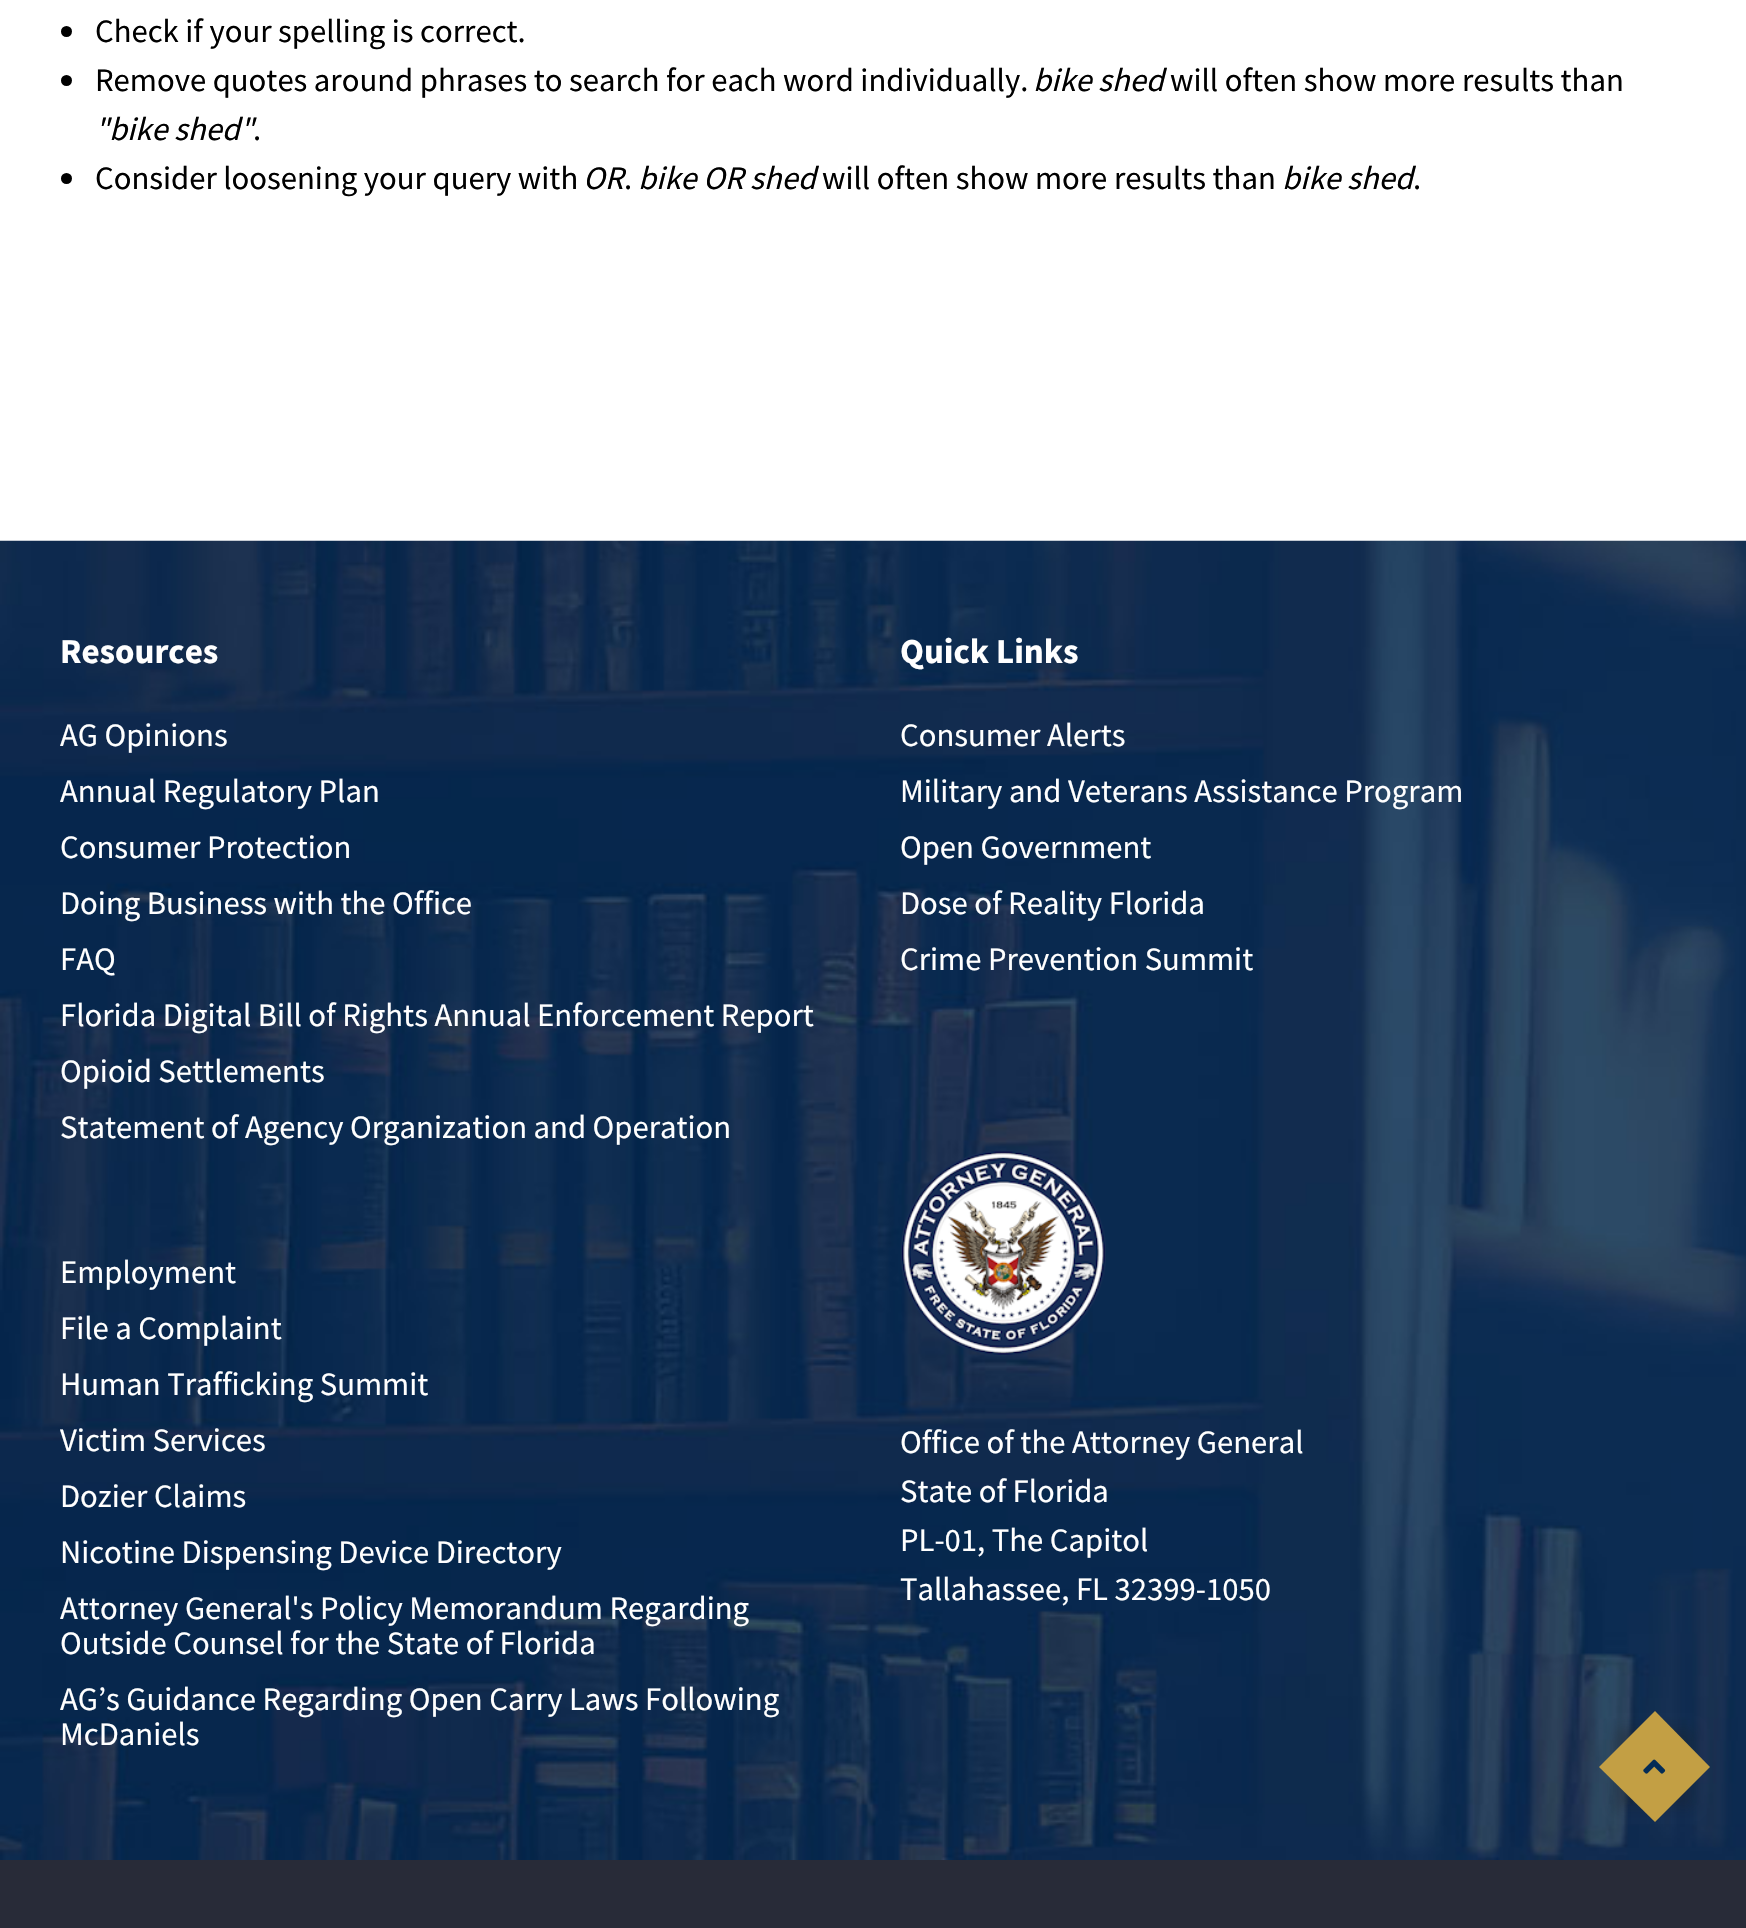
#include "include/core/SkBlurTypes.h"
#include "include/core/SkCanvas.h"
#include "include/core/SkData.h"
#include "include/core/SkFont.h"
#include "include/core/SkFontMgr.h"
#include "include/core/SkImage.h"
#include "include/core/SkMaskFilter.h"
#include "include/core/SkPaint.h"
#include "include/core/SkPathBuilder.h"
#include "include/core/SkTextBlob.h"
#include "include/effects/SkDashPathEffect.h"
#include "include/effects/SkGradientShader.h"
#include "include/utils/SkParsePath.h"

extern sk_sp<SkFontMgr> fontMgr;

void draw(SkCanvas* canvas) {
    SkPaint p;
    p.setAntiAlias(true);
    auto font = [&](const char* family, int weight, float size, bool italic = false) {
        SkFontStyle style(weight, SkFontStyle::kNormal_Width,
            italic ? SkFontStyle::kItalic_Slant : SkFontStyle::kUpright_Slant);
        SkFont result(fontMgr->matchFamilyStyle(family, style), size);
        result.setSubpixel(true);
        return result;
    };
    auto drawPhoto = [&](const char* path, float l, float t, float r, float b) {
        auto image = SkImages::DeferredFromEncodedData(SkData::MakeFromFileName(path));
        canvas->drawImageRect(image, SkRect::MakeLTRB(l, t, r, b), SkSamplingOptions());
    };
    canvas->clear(0xFFFFFFFF);
    p.setColor(0xFF000000);
    canvas->drawCircle(66.5f, 31.5f, 5.5f, p);
    auto font1 = font("Source Sans Pro", 400, 32.7f);
    canvas->drawString("Check if your spelling is correct.", 95, 42, font1, p);
    canvas->drawCircle(66.5f, 80.5f, 5.5f, p);
    canvas->drawString("Remove quotes around phrases to search for each word individually.", 95, 91, font1, p);
    auto font2 = font("Source Sans Pro", 400, 32.7f, true);
    canvas->drawString("bike shed", 1033, 91, font2, p);
    canvas->drawString("will often show more results than", 1170, 91, font1, p);
    canvas->drawString("\"bike shed\"", 95, 140, font2, p);
    canvas->drawString(".", 253, 140, font1, p);
    canvas->drawCircle(66.5f, 178.5f, 5.5f, p);
    canvas->drawString("Consider loosening your query with", 95, 189, font1, p);
    canvas->drawString("OR", 583, 189, font2, p);
    canvas->drawString("bike OR shed", 638, 189, font2, p);
    canvas->drawString("will often show more results than", 822, 189, font1, p);
    canvas->drawString("bike shed", 1282, 189, font2, p);
    canvas->drawString(".", 624, 189, font1, p);
    canvas->drawString(".", 1413, 189, font1, p);
    drawPhoto("media/1.png", 0, 540, 1746, 1860);
    auto font3 = font("Source Sans Pro", 700, 35);
    p.setColor(0xFFFFFFFF);
    canvas->drawString("Resources", 60, 663, font3, p);
    {
        const struct { const char* s; float x, y; } items[] = {
            {"AG Opinions", 60, 746},
            {"Annual Regulatory Plan", 60, 802},
            {"Consumer Protection", 60, 858},
            {"Doing Business with the Office", 60, 914},
            {"FAQ", 60, 970},
            {"Florida Digital Bill of Rights Annual Enforcement Report", 60, 1026},
            {"Opioid Settlements", 60, 1082},
            {"Statement of Agency Organization and Operation", 60, 1138},
        };
        for (auto [s, x, y] : items) {
            canvas->drawString(s, x, y, font1, p);
        }
    }
    canvas->drawString("Quick Links", 900, 663, font3, p);
    {
        const struct { const char* s; float x, y; } items[] = {
            {"Consumer Alerts", 900, 746},
            {"Military and Veterans Assistance Program", 900, 802},
            {"Open Government", 900, 858},
            {"Dose of Reality Florida", 900, 914},
            {"Crime Prevention Summit", 900, 970},
            {"Employment", 60, 1283},
            {"File a Complaint", 60, 1339},
            {"Human Trafficking Summit", 60, 1395},
            {"Victim Services", 60, 1451},
            {"Dozier Claims", 60, 1507},
            {"Nicotine Dispensing Device Directory", 60, 1563},
            {"Attorney General's Policy Memorandum Regarding", 60, 1619},
            {"Outside Counsel for the State of Florida", 60, 1654},
            {"AG’s Guidance Regarding Open Carry Laws Following", 60, 1710},
            {"McDaniels", 60, 1745},
        };
        for (auto [s, x, y] : items) {
            canvas->drawString(s, x, y, font1, p);
        }
    }
    drawPhoto("media/2.png", 900, 1150, 1106, 1355);
    {
        const struct { const char* s; float x, y; } items[] = {
            {"Office of the Attorney General", 900, 1453},
            {"State of Florida", 900, 1502},
            {"PL-01, The Capitol", 900, 1551},
            {"Tallahassee, FL 32399-1050", 900, 1600},
        };
        for (auto [s, x, y] : items) {
            canvas->drawString(s, x, y, font1, p);
        }
    }
    p.setColor(0xFF282B38);
    canvas->drawRect(SkRect::MakeLTRB(0, 1860, 1746, 1928), p);
    p.setColor(0x47202124);
    p.setMaskFilter(SkMaskFilter::MakeBlur(kNormal_SkBlurStyle, 5.5f));
    canvas->drawRect(SkRect::MakeLTRB(1615, 1729, 1694, 1808), p);
    p.setMaskFilter(nullptr);
    p.setColor(0xFFC39F44);
    canvas->drawPath(SkPathBuilder().moveTo(1655, 1711).lineTo(1710, 1767).lineTo(1655, 1822).lineTo(1599, 1767).close().detach(), p);
    drawPhoto("media/3.png", 1643, 1759, 1666, 1774);
}
